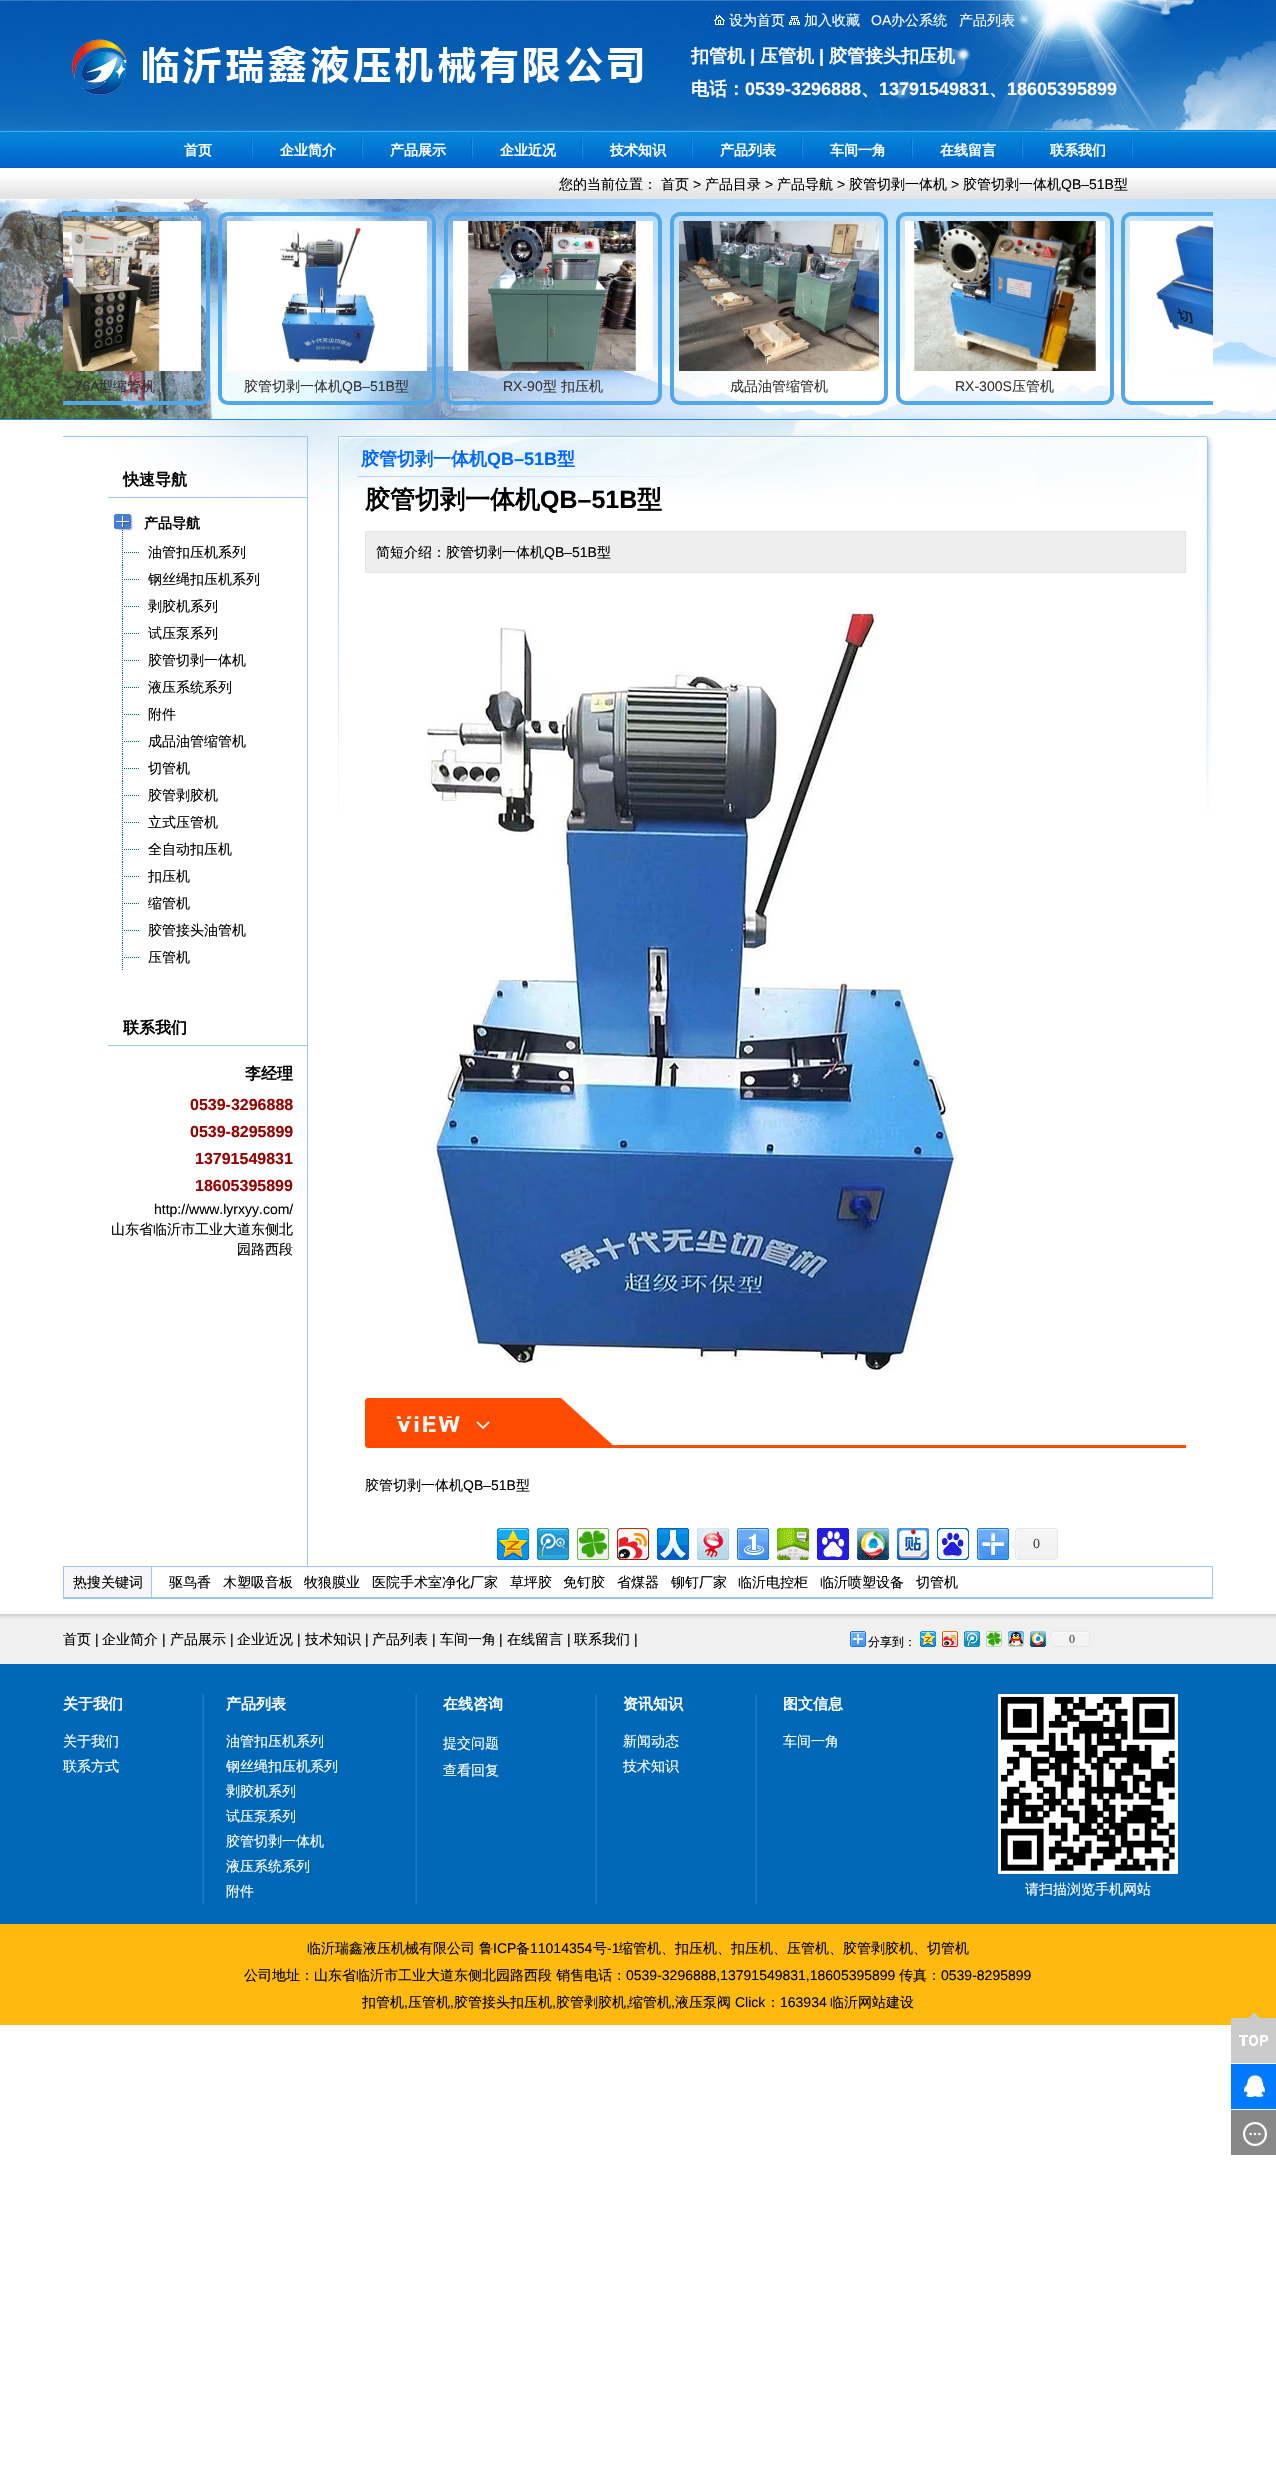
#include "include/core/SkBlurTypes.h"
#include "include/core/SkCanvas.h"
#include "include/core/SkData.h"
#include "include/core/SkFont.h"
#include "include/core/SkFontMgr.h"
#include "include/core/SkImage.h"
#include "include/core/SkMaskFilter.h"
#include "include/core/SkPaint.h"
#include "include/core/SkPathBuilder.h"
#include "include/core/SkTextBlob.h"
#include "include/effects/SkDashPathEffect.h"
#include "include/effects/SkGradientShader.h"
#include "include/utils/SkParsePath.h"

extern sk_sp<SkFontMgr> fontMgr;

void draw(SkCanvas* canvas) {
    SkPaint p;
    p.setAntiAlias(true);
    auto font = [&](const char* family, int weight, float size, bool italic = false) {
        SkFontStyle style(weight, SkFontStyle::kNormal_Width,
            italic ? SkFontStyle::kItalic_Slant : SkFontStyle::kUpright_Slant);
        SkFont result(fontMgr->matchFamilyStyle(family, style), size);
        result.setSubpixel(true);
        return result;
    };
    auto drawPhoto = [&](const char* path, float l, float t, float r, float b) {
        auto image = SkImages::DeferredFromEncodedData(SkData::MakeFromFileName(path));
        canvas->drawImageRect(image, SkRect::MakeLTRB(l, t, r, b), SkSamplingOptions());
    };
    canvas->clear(0xFFFFFFFF);
    drawPhoto("media/1.png", 0, 0, 1276, 521);
    drawPhoto("media/2.png", 72, 39, 643, 95);
    drawPhoto("media/3.png", 714, 15, 725, 25);
    auto font1 = font("WenQuanYi Zen Hei", 500, 14);
    p.setColor(0xFFFFFFFF);
    canvas->drawString("设为首页", 729, 25, font1, p);
    drawPhoto("media/4.png", 789, 16, 800, 25);
    canvas->drawString("加入收藏", 804, 25, font1, p);
    auto font2 = font("Liberation Sans", 400, 14);
    canvas->drawString("OA", 871, 25, font2, p);
    canvas->drawString("办公系统", 891, 25, font1, p);
    canvas->drawString("产品列表", 959, 25, font1, p);
    auto font3 = font("WenQuanYi Zen Hei", 700, 18);
    canvas->drawString("扣管机", 691, 62, font3, p);
    auto font4 = font("Liberation Sans", 700, 18);
    canvas->drawString("|", 750, 62, font4, p);
    canvas->drawString("压管机", 760, 62, font3, p);
    canvas->drawString("|", 819, 62, font4, p);
    canvas->drawString("胶管接头扣压机", 829, 62, font3, p);
    canvas->drawString("电话：", 691, 95, font3, p);
    canvas->drawString("0539-3296888", 745, 95, font4, p);
    canvas->drawString("、", 861, 95, font3, p);
    canvas->drawString("13791549831", 879, 95, font4, p);
    canvas->drawString("、", 989, 95, font3, p);
    canvas->drawString("18605395899", 1007, 95, font4, p);
    drawPhoto("media/5.png", 0, 130, 1276, 168);
    drawPhoto("media/6.png", 251, 138, 253, 159);
    auto font5 = font("WenQuanYi Zen Hei", 700, 14);
    canvas->drawString("首页", 184, 155, font5, p);
    drawPhoto("media/6.png", 361, 138, 363, 159);
    canvas->drawString("企业简介", 280, 155, font5, p);
    drawPhoto("media/7.png", 422, 131, 473, 159);
    canvas->drawString("产品展示", 390, 155, font5, p);
    drawPhoto("media/6.png", 581, 138, 583, 159);
    canvas->drawString("企业近况", 500, 155, font5, p);
    drawPhoto("media/6.png", 691, 138, 693, 159);
    canvas->drawString("技术知识", 610, 155, font5, p);
    drawPhoto("media/6.png", 801, 138, 803, 159);
    canvas->drawString("产品列表", 720, 155, font5, p);
    drawPhoto("media/6.png", 911, 138, 913, 159);
    canvas->drawString("车间一角", 830, 155, font5, p);
    drawPhoto("media/6.png", 1021, 138, 1023, 159);
    canvas->drawString("在线留言", 940, 155, font5, p);
    drawPhoto("media/8.png", 1090, 130, 1133, 159);
    canvas->drawString("联系我们", 1050, 155, font5, p);
    drawPhoto("media/9.png", 0, 168, 1276, 199);
    p.setColor(0xFF000000);
    canvas->drawString("您的当前位置：", 559, 189, font1, p);
    canvas->drawString("首页", 661, 189, font1, p);
    canvas->drawString(">", 693, 189, font2, p);
    canvas->drawString("产品目录", 705, 189, font1, p);
    canvas->drawString(">", 765, 189, font2, p);
    canvas->drawString("产品导航", 777, 189, font1, p);
    canvas->drawString(">", 837, 189, font2, p);
    canvas->drawString("胶管切剥一体机", 849, 189, font1, p);
    canvas->drawString(">", 951, 189, font2, p);
    canvas->drawString("胶管切剥一体机", 963, 189, font1, p);
    canvas->drawString("QB–51B", 1061, 189, font2, p);
    canvas->drawString("型", 1114, 189, font1, p);
    drawPhoto("media/10.png", 0, 199, 1276, 419);
    canvas->save();
    canvas->clipRect(SkRect::MakeLTRB(63, 209, 1213, 419));
    p.setStyle(SkPaint::kStroke_Style);
    p.setStrokeWidth(4);
    p.setColor(0xFF51A7E7);
    canvas->drawRoundRect(SkRect::MakeLTRB(-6, 214, 208, 403), 8, 8, p);
    canvas->restore();
    drawPhoto("media/11.png", 63, 221, 201, 371);
    p.setStyle(SkPaint::kFill_Style);
    p.setColor(0xFF333333);
    canvas->drawString("–76A", 67, 391, font2, p);
    canvas->drawString("型缩管机", 99, 391, font1, p);
    p.setStyle(SkPaint::kStroke_Style);
    p.setColor(0xFF51A7E7);
    canvas->drawRoundRect(SkRect::MakeLTRB(220, 214, 434, 403), 8, 8, p);
    drawPhoto("media/12.png", 227, 221, 427, 371);
    p.setStyle(SkPaint::kFill_Style);
    p.setColor(0xFF333333);
    canvas->drawString("胶管切剥一体机", 244, 391, font1, p);
    canvas->drawString("QB–51B", 342, 391, font2, p);
    canvas->drawString("型", 395, 391, font1, p);
    p.setStyle(SkPaint::kStroke_Style);
    p.setColor(0xFF51A7E7);
    canvas->drawRoundRect(SkRect::MakeLTRB(446, 214, 660, 403), 8, 8, p);
    drawPhoto("media/13.png", 453, 221, 653, 371);
    p.setStyle(SkPaint::kFill_Style);
    p.setColor(0xFF333333);
    canvas->drawString("RX-90", 503, 391, font2, p);
    canvas->drawString("型", 543, 391, font1, p);
    canvas->drawString("扣压机", 561, 391, font1, p);
    p.setStyle(SkPaint::kStroke_Style);
    p.setColor(0xFF51A7E7);
    canvas->drawRoundRect(SkRect::MakeLTRB(672, 214, 886, 403), 8, 8, p);
    drawPhoto("media/14.png", 679, 221, 879, 371);
    p.setStyle(SkPaint::kFill_Style);
    p.setColor(0xFF333333);
    canvas->drawString("成品油管缩管机", 730, 391, font1, p);
    p.setStyle(SkPaint::kStroke_Style);
    p.setColor(0xFF51A7E7);
    canvas->drawRoundRect(SkRect::MakeLTRB(898, 214, 1112, 403), 8, 8, p);
    drawPhoto("media/15.png", 905, 221, 1105, 371);
    p.setStyle(SkPaint::kFill_Style);
    p.setColor(0xFF333333);
    canvas->drawString("RX-300S", 955, 391, font2, p);
    canvas->drawString("压管机", 1012, 391, font1, p);
    canvas->save();
    canvas->clipRect(SkRect::MakeLTRB(63, 209, 1213, 419));
    p.setStyle(SkPaint::kStroke_Style);
    p.setColor(0xFF51A7E7);
    canvas->drawRoundRect(SkRect::MakeLTRB(1123, 214, 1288, 403), 8, 8, p);
    canvas->restore();
    drawPhoto("media/16.png", 1130, 221, 1213, 369);
    p.setStyle(SkPaint::kFill_Style);
    {
        const struct { float l, t, r, b; SkColor color; } items[] = {
            {0, 419, 1276, 420, 0xFF288CED},
            {307, 436, 308, 1566, 0xFF9BC7F4},
            {63, 436, 308, 437, 0xFF9BC7F4},
        };
        for (auto [l, t, r, b, color] : items) {
            p.setColor(color);
            canvas->drawRect(SkRect::MakeLTRB(l, t, r, b), p);
        }
    }
    auto font6 = font("WenQuanYi Zen Hei", 700, 16);
    p.setColor(0xFF000000);
    canvas->drawString("快速导航", 123, 485, font6, p);
    p.setColor(0xFF9BC7F4);
    canvas->drawRect(SkRect::MakeLTRB(108, 497, 308, 498), p);
    drawPhoto("media/17.png", 114, 514, 133, 537);
    p.setColor(0xFF000000);
    canvas->drawString("产品导航", 144, 528, font5, p);
    drawPhoto("media/18.png", 122, 538, 139, 565);
    canvas->drawString("油管扣压机系列", 148, 557, font1, p);
    drawPhoto("media/18.png", 122, 565, 139, 592);
    canvas->drawString("钢丝绳扣压机系列", 148, 584, font1, p);
    drawPhoto("media/18.png", 122, 592, 139, 619);
    canvas->drawString("剥胶机系列", 148, 611, font1, p);
    drawPhoto("media/18.png", 122, 619, 139, 646);
    canvas->drawString("试压泵系列", 148, 638, font1, p);
    drawPhoto("media/18.png", 122, 646, 139, 673);
    canvas->drawString("胶管切剥一体机", 148, 665, font1, p);
    drawPhoto("media/18.png", 122, 673, 139, 700);
    canvas->drawString("液压系统系列", 148, 692, font1, p);
    drawPhoto("media/18.png", 122, 700, 139, 727);
    canvas->drawString("附件", 148, 719, font1, p);
    drawPhoto("media/18.png", 122, 727, 139, 754);
    canvas->drawString("成品油管缩管机", 148, 746, font1, p);
    drawPhoto("media/18.png", 122, 754, 139, 781);
    canvas->drawString("切管机", 148, 773, font1, p);
    drawPhoto("media/18.png", 122, 781, 139, 808);
    canvas->drawString("胶管剥胶机", 148, 800, font1, p);
    drawPhoto("media/18.png", 122, 808, 139, 835);
    canvas->drawString("立式压管机", 148, 827, font1, p);
    drawPhoto("media/18.png", 122, 835, 139, 862);
    canvas->drawString("全自动扣压机", 148, 854, font1, p);
    drawPhoto("media/18.png", 122, 862, 139, 889);
    canvas->drawString("扣压机", 148, 881, font1, p);
    drawPhoto("media/18.png", 122, 889, 139, 916);
    canvas->drawString("缩管机", 148, 908, font1, p);
    drawPhoto("media/18.png", 122, 916, 139, 943);
    canvas->drawString("胶管接头油管机", 148, 935, font1, p);
    drawPhoto("media/18.png", 122, 943, 139, 970);
    canvas->drawString("压管机", 148, 962, font1, p);
    canvas->drawString("联系我们", 123, 1033, font6, p);
    p.setColor(0xFF9BC7F4);
    canvas->drawRect(SkRect::MakeLTRB(108, 1045, 308, 1046), p);
    p.setColor(0xFF000000);
    canvas->drawString("李经理", 245, 1079, font6, p);
    auto font7 = font("Liberation Sans", 700, 16);
    p.setColor(0xFF990000);
    {
        const struct { const char* s; float x, y; } items[] = {
            {"0539-3296888", 190, 1110},
            {"0539-8295899", 190, 1137},
            {"13791549831", 195, 1164},
            {"18605395899", 195, 1191},
        };
        for (auto [s, x, y] : items) {
            canvas->drawString(s, x, y, font7, p);
        }
    }
    p.setColor(0xFF000000);
    canvas->drawString("http://www.lyrxyy.com/", 154, 1214, font2, p);
    canvas->drawString("山东省临沂市工业大道东侧北", 111, 1234, font1, p);
    canvas->drawString("园路西段", 237, 1254, font1, p);
    drawPhoto("media/19.png", 338, 436, 1213, 812);
    p.setColor(0xFF0066FF);
    canvas->drawString("胶管切剥一体机", 361, 465, font3, p);
    canvas->drawString("QB–51B", 487, 465, font4, p);
    canvas->drawString("型", 557, 465, font3, p);
    auto font8 = font("WenQuanYi Zen Hei", 700, 25);
    p.setColor(0xFF000000);
    canvas->drawString("胶管切剥一体机", 365, 508, font8, p);
    auto font9 = font("Liberation Sans", 700, 25);
    canvas->drawString("QB–51B", 540, 508, font9, p);
    canvas->drawString("型", 637, 508, font8, p);
    p.setColor(0xFFE4E4E4);
    canvas->drawRect(SkRect::MakeLTRB(365, 531, 1186, 573), p);
    p.setColor(0xFFEEEEEE);
    canvas->drawRect(SkRect::MakeLTRB(366, 532, 1185, 572), p);
    p.setColor(0xFF000000);
    canvas->drawString("简短介绍：胶管切剥一体机", 376, 557, font1, p);
    canvas->drawString("QB–51B", 544, 557, font2, p);
    canvas->drawString("型", 597, 557, font1, p);
    drawPhoto("media/20.png", 427, 609, 959, 1371);
    drawPhoto("media/21.png", 365, 1398, 1186, 1448);
    canvas->drawString("胶管切剥一体机", 365, 1490, font1, p);
    canvas->drawString("QB–51B", 463, 1490, font2, p);
    canvas->drawString("型", 516, 1490, font1, p);
    drawPhoto("media/22.png", 497, 1528, 529, 1560);
    drawPhoto("media/23.png", 537, 1528, 569, 1560);
    drawPhoto("media/24.png", 577, 1528, 609, 1560);
    drawPhoto("media/25.png", 617, 1528, 649, 1560);
    drawPhoto("media/26.png", 657, 1528, 689, 1560);
    drawPhoto("media/27.png", 697, 1528, 729, 1560);
    drawPhoto("media/28.png", 737, 1528, 769, 1560);
    drawPhoto("media/29.png", 777, 1528, 809, 1560);
    drawPhoto("media/30.png", 817, 1528, 849, 1560);
    drawPhoto("media/31.png", 857, 1528, 889, 1560);
    drawPhoto("media/32.png", 897, 1528, 929, 1560);
    drawPhoto("media/33.png", 937, 1528, 969, 1560);
    drawPhoto("media/34.png", 977, 1528, 1009, 1560);
    drawPhoto("media/35.png", 1010, 1528, 1058, 1560);
    auto font10 = font("Liberation Serif", 400, 14);
    p.setColor(0xFF454545);
    canvas->drawString("0", 1033, 1548, font10, p);
    p.setColor(0xFF9BC7F4);
    canvas->drawRect(SkRect::MakeLTRB(63, 1566, 1213, 1599), p);
    p.setColor(0xFFF6F5F8);
    canvas->drawRect(SkRect::MakeLTRB(64, 1567, 151, 1597), p);
    p.setColor(0xFF000000);
    canvas->drawString("热搜关键词", 73, 1587, font1, p);
    p.setColor(0xFFFFFFFF);
    canvas->drawRect(SkRect::MakeLTRB(152, 1567, 1212, 1597), p);
    p.setColor(0xFF000000);
    {
        const struct { const char* s; float x, y; } items[] = {
            {"驱鸟香", 169, 1587},
            {"木塑吸音板", 223, 1587},
            {"牧狼膜业", 304, 1587},
            {"医院手术室净化厂家", 372, 1587},
            {"草坪胶", 510, 1587},
            {"免钉胶", 563, 1587},
            {"省煤器", 617, 1587},
            {"铆钉厂家", 671, 1587},
            {"临沂电控柜", 738, 1587},
            {"临沂喷塑设备", 820, 1587},
            {"切管机", 916, 1587},
        };
        for (auto [s, x, y] : items) {
            canvas->drawString(s, x, y, font1, p);
        }
    }
    drawPhoto("media/36.png", 0, 1614, 1276, 1664);
    canvas->drawString("首页", 63, 1644, font1, p);
    canvas->drawString("|", 95, 1644, font2, p);
    canvas->drawString("企业简介", 102, 1644, font1, p);
    canvas->drawString("|", 162, 1644, font2, p);
    canvas->drawString("产品展示", 170, 1644, font1, p);
    canvas->drawString("|", 230, 1644, font2, p);
    canvas->drawString("企业近况", 237, 1644, font1, p);
    canvas->drawString("|", 297, 1644, font2, p);
    canvas->drawString("技术知识", 305, 1644, font1, p);
    canvas->drawString("|", 365, 1644, font2, p);
    canvas->drawString("产品列表", 372, 1644, font1, p);
    canvas->drawString("|", 432, 1644, font2, p);
    canvas->drawString("车间一角", 440, 1644, font1, p);
    canvas->drawString("|", 499, 1644, font2, p);
    canvas->drawString("在线留言", 507, 1644, font1, p);
    canvas->drawString("|", 567, 1644, font2, p);
    canvas->drawString("联系我们", 574, 1644, font1, p);
    canvas->drawString("|", 634, 1644, font2, p);
    drawPhoto("media/37.png", 850, 1631, 866, 1647);
    auto font11 = font("WenQuanYi Zen Hei", 500, 12);
    canvas->drawString("分享到：", 868, 1646, font11, p);
    drawPhoto("media/38.png", 920, 1631, 936, 1647);
    drawPhoto("media/39.png", 942, 1631, 958, 1647);
    drawPhoto("media/40.png", 964, 1631, 980, 1647);
    drawPhoto("media/41.png", 986, 1631, 1002, 1647);
    drawPhoto("media/42.png", 1008, 1631, 1024, 1647);
    drawPhoto("media/43.png", 1030, 1631, 1046, 1647);
    drawPhoto("media/44.png", 1048, 1631, 1090, 1647);
    auto font12 = font("Liberation Serif", 400, 12);
    p.setColor(0xFF454545);
    canvas->drawString("0", 1069, 1643, font12, p);
    p.setColor(0xFF0068B7);
    canvas->drawRect(SkRect::MakeLTRB(0, 1664, 1276, 1924), p);
    auto font13 = font("WenQuanYi Zen Hei", 700, 15);
    p.setColor(0xFFFFFFFF);
    canvas->drawString("关于我们", 63, 1709, font13, p);
    canvas->drawString("关于我们", 63, 1746, font1, p);
    canvas->drawString("联系方式", 63, 1771, font1, p);
    drawPhoto("media/45.png", 202, 1694, 204, 1904);
    canvas->drawString("产品列表", 226, 1709, font13, p);
    {
        const struct { const char* s; float x, y; } items[] = {
            {"油管扣压机系列", 226, 1746},
            {"钢丝绳扣压机系列", 226, 1771},
            {"剥胶机系列", 226, 1796},
            {"试压泵系列", 226, 1821},
            {"胶管切剥一体机", 226, 1846},
            {"液压系统系列", 226, 1871},
            {"附件", 226, 1896},
        };
        for (auto [s, x, y] : items) {
            canvas->drawString(s, x, y, font1, p);
        }
    }
    drawPhoto("media/45.png", 415, 1694, 417, 1904);
    canvas->drawString("在线咨询", 443, 1709, font13, p);
    canvas->drawString("提交问题", 443, 1748, font1, p);
    canvas->drawString("查看回复", 443, 1775, font1, p);
    drawPhoto("media/45.png", 595, 1694, 597, 1904);
    canvas->drawString("资讯知识", 623, 1709, font13, p);
    canvas->drawString("新闻动态", 623, 1746, font1, p);
    canvas->drawString("技术知识", 623, 1771, font1, p);
    drawPhoto("media/45.png", 755, 1694, 757, 1904);
    canvas->drawString("图文信息", 783, 1709, font13, p);
    canvas->drawString("车间一角", 783, 1746, font1, p);
    drawPhoto("media/46.png", 998, 1694, 1178, 1874);
    canvas->drawString("请扫描浏览手机网站", 1025, 1894, font1, p);
    p.setColor(0xFFFDB90E);
    canvas->drawRect(SkRect::MakeLTRB(0, 1924, 1276, 2025), p);
    p.setColor(0xFF000000);
    canvas->drawString("临沂瑞鑫液压机械有限公司", 307, 1953, font1, p);
    canvas->drawString("鲁", 479, 1953, font1, p);
    canvas->drawString("ICP", 493, 1953, font2, p);
    canvas->drawString("备", 516, 1953, font1, p);
    canvas->drawString("11014354", 530, 1953, font2, p);
    canvas->drawString("号", 593, 1953, font1, p);
    canvas->drawString("-1", 607, 1953, font2, p);
    canvas->drawString("缩管机、扣压机、扣压机、压管机、胶管剥胶机、切管机", 619, 1953, font1, p);
    canvas->drawString("公司地址：山东省临沂市工业大道东侧北园路西段 销售电话：", 244, 1980, font1, p);
    canvas->drawString("0539-3296888,13791549831,18605395899", 626, 1980, font2, p);
    canvas->drawString("传真：", 899, 1980, font1, p);
    canvas->drawString("0539-8295899", 941, 1980, font2, p);
    canvas->drawString("扣管机", 362, 2007, font1, p);
    canvas->drawString(",", 404, 2007, font2, p);
    canvas->drawString("压管机", 408, 2007, font1, p);
    canvas->drawString(",", 450, 2007, font2, p);
    canvas->drawString("胶管接头扣压机", 454, 2007, font1, p);
    canvas->drawString(",", 552, 2007, font2, p);
    canvas->drawString("胶管剥胶机", 556, 2007, font1, p);
    canvas->drawString(",", 626, 2007, font2, p);
    canvas->drawString("缩管机", 629, 2007, font1, p);
    canvas->drawString(",", 671, 2007, font2, p);
    canvas->drawString("液压泵阀", 675, 2007, font1, p);
    canvas->drawString("Click", 735, 2007, font2, p);
    canvas->drawString("：", 766, 2007, font1, p);
    canvas->drawString("163934", 780, 2007, font2, p);
    canvas->drawString("临沂网站建设", 830, 2007, font1, p);
    drawPhoto("media/47.png", 1231, 2013, 1276, 2063);
    drawPhoto("media/48.png", 1231, 2064, 1276, 2109);
    drawPhoto("media/49.png", 1231, 2110, 1276, 2155);
}
